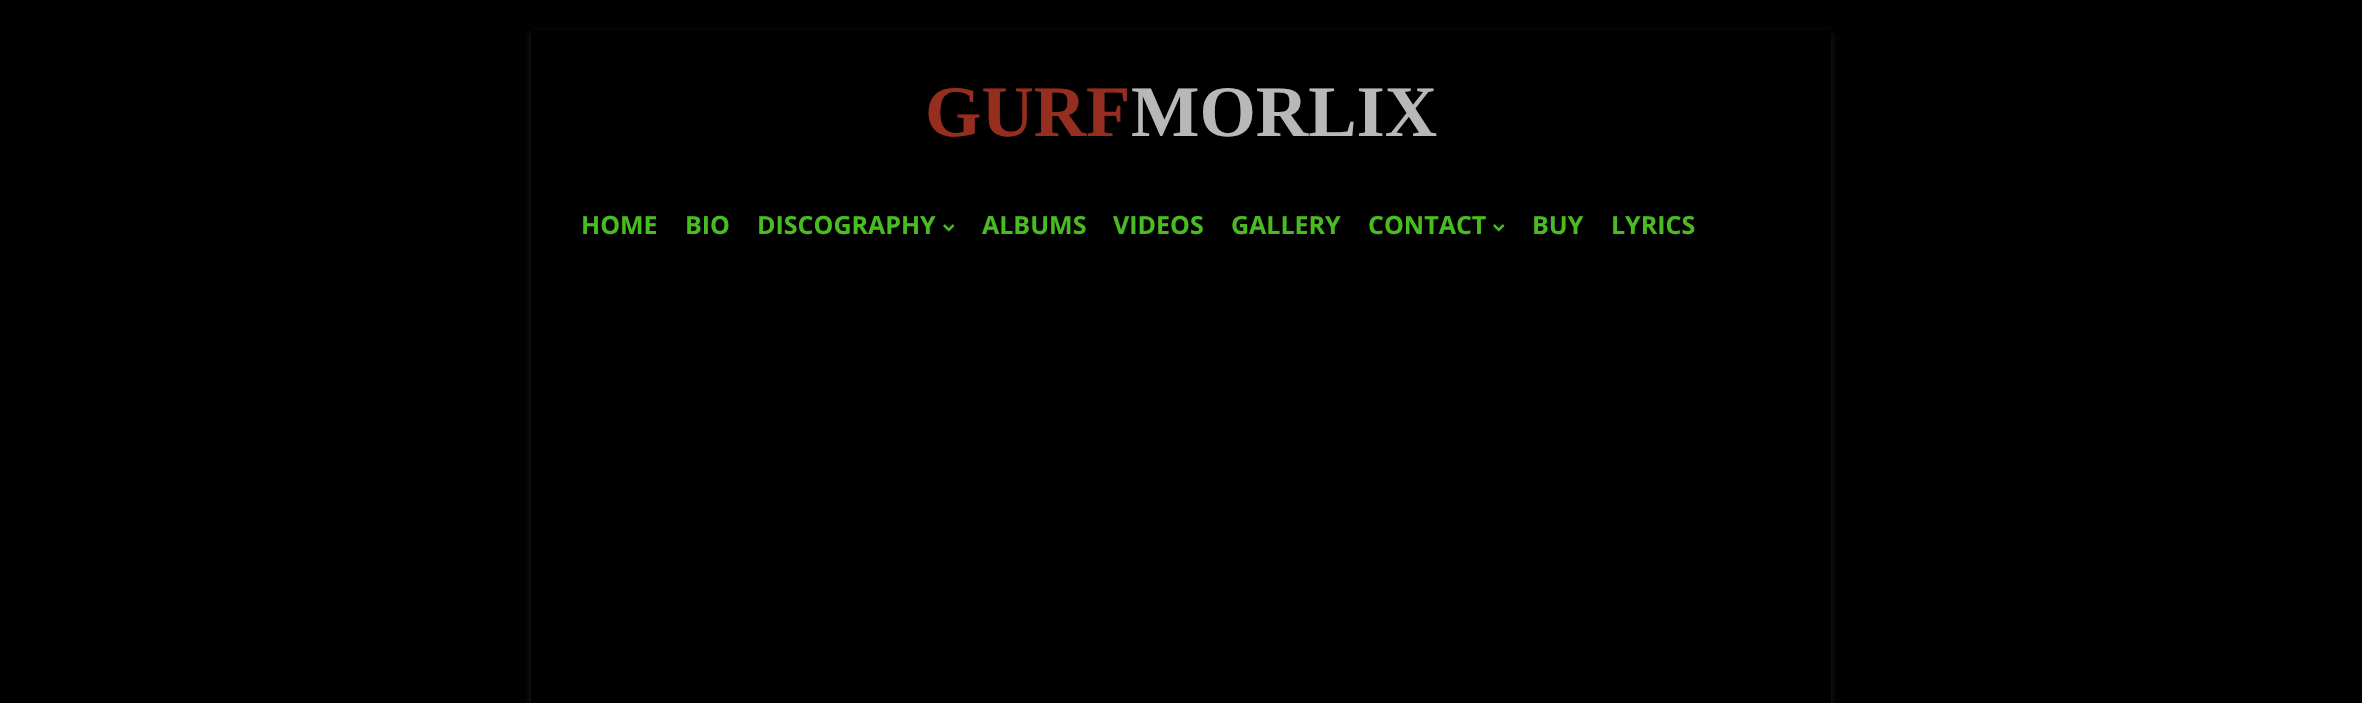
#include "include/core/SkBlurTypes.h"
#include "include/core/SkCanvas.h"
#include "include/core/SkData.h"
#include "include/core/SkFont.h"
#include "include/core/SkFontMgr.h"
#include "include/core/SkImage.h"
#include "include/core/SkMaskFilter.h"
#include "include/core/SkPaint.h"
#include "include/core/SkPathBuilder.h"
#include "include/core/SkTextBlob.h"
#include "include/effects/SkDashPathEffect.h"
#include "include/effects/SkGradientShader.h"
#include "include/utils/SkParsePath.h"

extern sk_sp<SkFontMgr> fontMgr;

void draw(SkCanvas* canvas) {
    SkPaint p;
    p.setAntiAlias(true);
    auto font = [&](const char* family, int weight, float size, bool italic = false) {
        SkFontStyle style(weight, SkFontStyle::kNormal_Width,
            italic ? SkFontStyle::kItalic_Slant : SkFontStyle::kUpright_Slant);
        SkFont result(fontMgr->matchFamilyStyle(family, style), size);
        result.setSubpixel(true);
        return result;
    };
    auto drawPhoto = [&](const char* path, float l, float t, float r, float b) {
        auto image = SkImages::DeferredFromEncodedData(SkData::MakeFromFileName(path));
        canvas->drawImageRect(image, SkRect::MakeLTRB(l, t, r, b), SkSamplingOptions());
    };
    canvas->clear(0xFF000000);
    p.setColor(0x4D646464);
    p.setMaskFilter(SkMaskFilter::MakeBlur(kNormal_SkBlurStyle, 4));
    canvas->drawRect(SkRect::MakeLTRB(531, 33, 1831, 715), p);
    p.setMaskFilter(nullptr);
    p.setColor(0xFF000000);
    canvas->drawRect(SkRect::MakeLTRB(531, 30, 1831, 703), p);
    auto font1 = font("Liberation Serif", 700, 72.5f);
    p.setColor(0xFF952E1E);
    canvas->drawString("GURF", 925, 136, font1, p);
    p.setColor(0xFFB8B8B8);
    canvas->drawString("MORLIX", 1131, 136, font1, p);
    auto font2 = font("Open Sans", 700, 25);
    p.setColor(0xFF49BC22);
    {
        const struct { const char* s; float x, y; } items[] = {
            {"HOME", 581, 234},
            {"BIO", 685, 234},
            {"DISCOGRAPHY", 757, 234},
        };
        for (auto [s, x, y] : items) {
            canvas->drawString(s, x, y, font2, p);
        }
    }
    drawPhoto("media/1.png", 943, 224, 955, 232);
    {
        const struct { const char* s; float x, y; } items[] = {
            {"ALBUMS", 982, 234},
            {"VIDEOS", 1113, 234},
            {"GALLERY", 1231, 234},
            {"CONTACT", 1368, 234},
        };
        for (auto [s, x, y] : items) {
            canvas->drawString(s, x, y, font2, p);
        }
    }
    drawPhoto("media/1.png", 1493, 224, 1505, 232);
    canvas->drawString("BUY", 1532, 234, font2, p);
    canvas->drawString("LYRICS", 1611, 234, font2, p);
}
